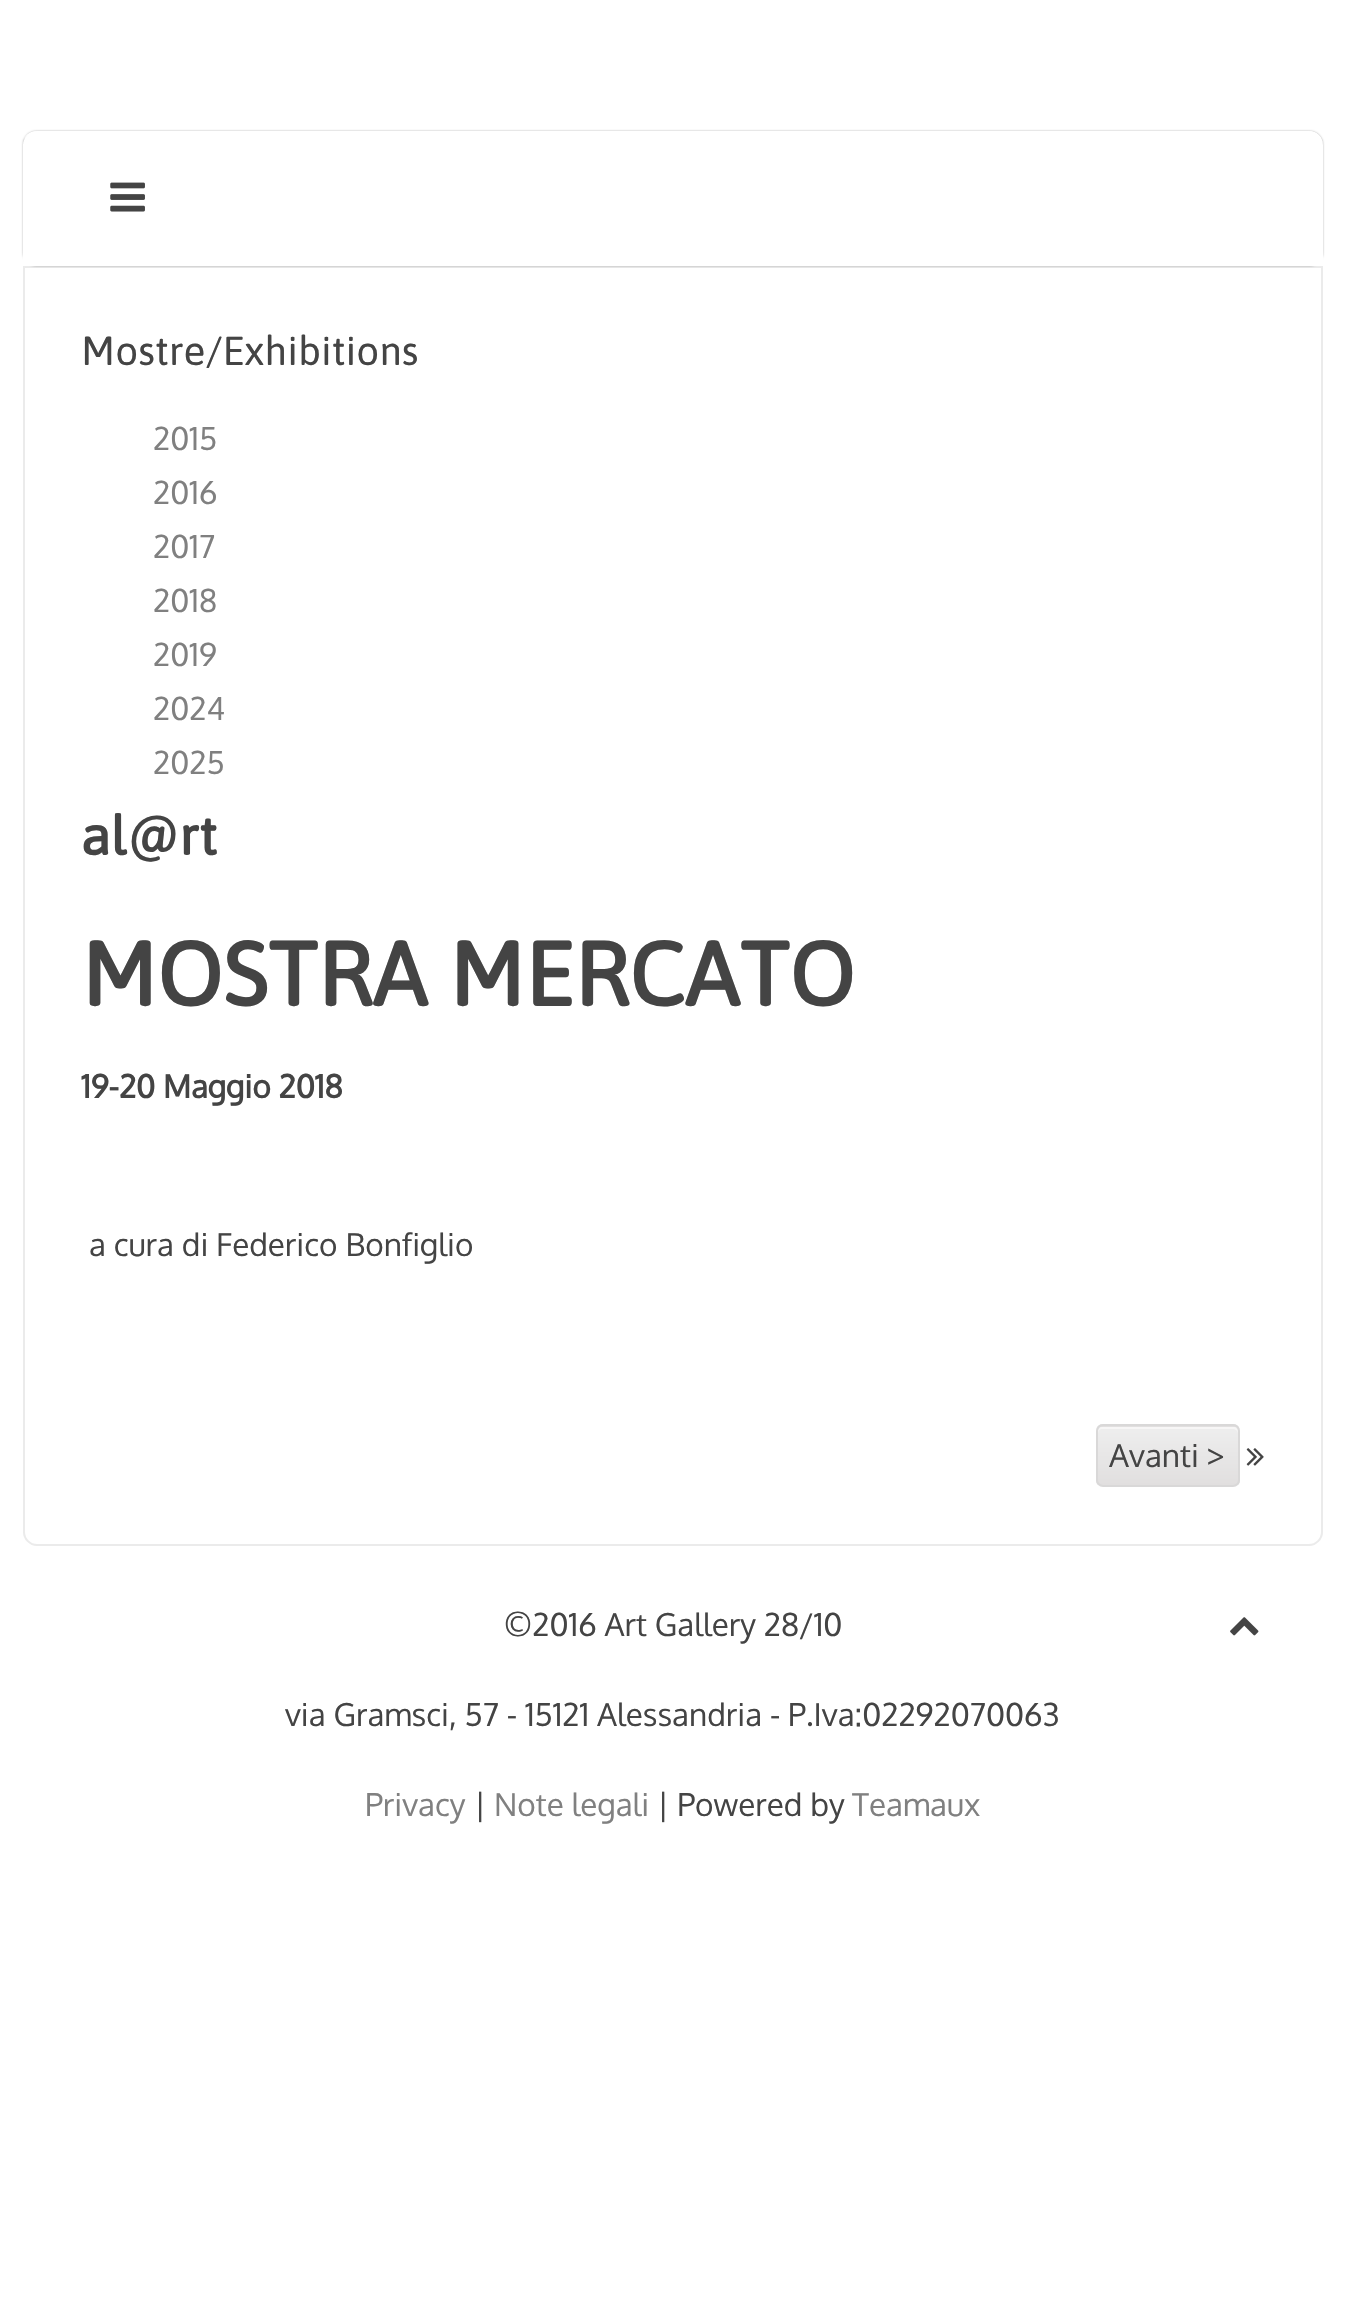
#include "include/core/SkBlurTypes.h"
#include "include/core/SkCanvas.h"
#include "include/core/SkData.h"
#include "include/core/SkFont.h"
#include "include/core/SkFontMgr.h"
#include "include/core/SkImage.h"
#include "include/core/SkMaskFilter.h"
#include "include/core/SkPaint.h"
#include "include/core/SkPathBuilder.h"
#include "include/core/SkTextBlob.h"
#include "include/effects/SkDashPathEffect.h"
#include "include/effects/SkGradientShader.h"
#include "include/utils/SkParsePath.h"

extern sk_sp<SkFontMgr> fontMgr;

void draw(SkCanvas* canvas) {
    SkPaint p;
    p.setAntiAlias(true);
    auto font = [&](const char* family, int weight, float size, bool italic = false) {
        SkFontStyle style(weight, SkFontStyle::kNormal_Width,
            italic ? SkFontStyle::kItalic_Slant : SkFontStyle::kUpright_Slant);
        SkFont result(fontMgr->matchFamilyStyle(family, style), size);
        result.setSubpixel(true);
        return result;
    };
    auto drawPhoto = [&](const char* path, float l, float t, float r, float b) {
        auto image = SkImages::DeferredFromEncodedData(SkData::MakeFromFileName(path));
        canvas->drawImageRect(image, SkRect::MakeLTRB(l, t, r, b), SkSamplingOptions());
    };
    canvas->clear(0xFFFFFFFF);
    canvas->save();
    canvas->clipPath(SkPathBuilder(SkPathFillType::kEvenOdd).moveTo(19, 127).lineTo(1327, 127).lineTo(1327, 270).lineTo(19, 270).close().moveTo(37, 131).lineTo(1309, 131).cubicTo(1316.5f, 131, 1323, 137.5f, 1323, 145).lineTo(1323, 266).lineTo(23, 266).lineTo(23, 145).cubicTo(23, 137.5f, 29.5f, 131, 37, 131).close().detach(), true);
    p.setColor(0x59000000);
    p.setMaskFilter(SkMaskFilter::MakeBlur(kNormal_SkBlurStyle, 1));
    canvas->drawRoundRect(SkRect::MakeLTRB(23, 131, 1323, 266), 14, 14, p);
    p.setMaskFilter(nullptr);
    canvas->restore();
    p.setColor(0xFFFFFFFF);
    canvas->drawPath(SkPathBuilder().moveTo(36, 133).lineTo(1310, 133).cubicTo(1317, 133, 1323, 139, 1323, 146).lineTo(1323, 145).cubicTo(1323, 137, 1317, 131, 1309, 131).lineTo(37, 131).cubicTo(31, 131, 26, 134, 24, 139).cubicTo(27, 136, 31, 133, 36, 133).close().detach(), p);
    drawPhoto("media/1.png", 110, 182, 145, 212);
    p.setStyle(SkPaint::kStroke_Style);
    p.setStrokeWidth(2);
    p.setColor(0x14000000);
    canvas->drawPath(SkPathBuilder().moveTo(24, 267).lineTo(1322, 267).lineTo(1322, 1532).cubicTo(1322, 1539, 1316, 1545, 1309, 1545).lineTo(37, 1545).cubicTo(30, 1545, 24, 1539, 24, 1532).close().detach(), p);
    auto font1 = font("Asap", 400, 40.5f);
    p.setStyle(SkPaint::kFill_Style);
    p.setColor(0xFF444444);
    canvas->drawString("Mostre/Exhibitions", 81, 365, font1, p);
    auto font2 = font("Oxygen", 400, 31.5f);
    p.setColor(0xFF808080);
    {
        const struct { const char* s; float x, y; } items[] = {
            {"2015", 153, 450},
            {"2016", 153, 504},
            {"2017", 153, 558},
            {"2018", 153, 612},
            {"2019", 153, 666},
            {"2024", 153, 720},
            {"2025", 153, 774},
        };
        for (auto [s, x, y] : items) {
            canvas->drawString(s, x, y, font2, p);
        }
    }
    auto font3 = font("Asap", 700, 54);
    p.setColor(0xFF444444);
    canvas->drawString("al@rt", 81, 855, font3, p);
    auto font4 = font("Asap", 700, 90);
    canvas->drawString("MOSTRA MERCATO", 81, 1006, font4, p);
    auto font5 = font("Oxygen", 700, 31.5f);
    canvas->drawString("19-20 Maggio 2018", 81, 1098, font5, p);
    canvas->drawString("a cura di Federico Bonfiglio", 89, 1256, font2, p);
    canvas->save();
    canvas->clipPath(SkPathBuilder().moveTo(1103, 1424).lineTo(1233, 1424).cubicTo(1237, 1424, 1240, 1427, 1240, 1431).lineTo(1240, 1480).cubicTo(1240, 1484, 1237, 1487, 1233, 1487).lineTo(1103, 1487).cubicTo(1099, 1487, 1096, 1484, 1096, 1480).lineTo(1096, 1431).cubicTo(1096, 1427, 1099, 1424, 1103, 1424).close().detach(), true);
    {
        const SkColor colors[] = {0xFFEEEEEE, 0xFFE1DFDF};
        const float stops[] = {0, 1};
        const SkPoint ends[] = {{1168, 1368}, {1168, 1427}};
        p.setShader(SkGradientShader::MakeLinear(ends, colors, stops, 2, SkTileMode::kClamp));
        p.setAlpha(255);
    }
    canvas->drawRect(SkRect::MakeLTRB(1096, 1424, 1240, 1427), p);
    {
        const SkColor colors[] = {0xFFEEEEEE, 0xFFE1DFDF};
        const float stops[] = {0, 1};
        const SkPoint ends[] = {{1168, 1427}, {1168, 1485}};
        p.setShader(SkGradientShader::MakeLinear(ends, colors, stops, 2, SkTileMode::kClamp));
        p.setAlpha(255);
    }
    canvas->drawRect(SkRect::MakeLTRB(1096, 1427, 1240, 1485), p);
    canvas->restore();
    p.setShader(nullptr);
    p.setColor(0xFFF7F6F6);
    canvas->drawPath(SkPathBuilder().moveTo(1102, 1429).lineTo(1233, 1429).cubicTo(1235, 1429, 1238, 1431, 1238, 1433).lineTo(1238, 1432).cubicTo(1238, 1429, 1236, 1427, 1233, 1427).lineTo(1103, 1427).cubicTo(1100, 1427, 1098, 1429, 1098, 1432).lineTo(1098, 1433).cubicTo(1098, 1431, 1100, 1429, 1102, 1429).close().detach(), p);
    p.setStyle(SkPaint::kStroke_Style);
    p.setColor(0xFFD9D8D8);
    canvas->drawRoundRect(SkRect::MakeLTRB(1097, 1425, 1239, 1486), 6, 6, p);
    p.setStyle(SkPaint::kFill_Style);
    p.setColor(0xFF444444);
    canvas->drawString("Avanti >", 1109, 1467, font2, p);
    drawPhoto("media/2.png", 1246, 1448, 1264, 1466);
    canvas->drawString("©2016 Art Gallery 28/10", 504, 1636, font2, p);
    drawPhoto("media/3.png", 1230, 1617, 1259, 1636);
    canvas->drawString("via Gramsci, 57 - 15121 Alessandria - P.Iva:02292070063", 285, 1726, font2, p);
    p.setColor(0xFF808080);
    canvas->drawString("Privacy", 365, 1816, font2, p);
    p.setColor(0xFF444444);
    canvas->drawString("|", 474, 1816, font2, p);
    p.setColor(0xFF808080);
    canvas->drawString("Note legali", 494, 1816, font2, p);
    p.setColor(0xFF444444);
    canvas->drawString("| Powered by", 657, 1816, font2, p);
    p.setColor(0xFF808080);
    canvas->drawString("Teamaux", 852, 1816, font2, p);
}
